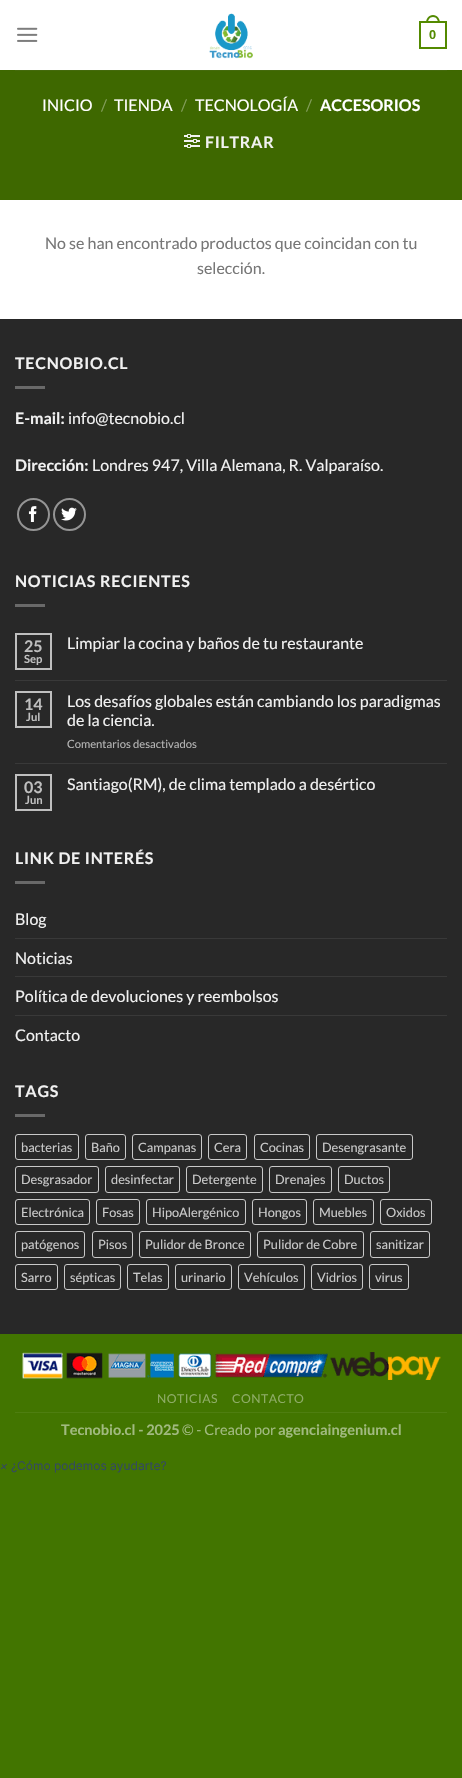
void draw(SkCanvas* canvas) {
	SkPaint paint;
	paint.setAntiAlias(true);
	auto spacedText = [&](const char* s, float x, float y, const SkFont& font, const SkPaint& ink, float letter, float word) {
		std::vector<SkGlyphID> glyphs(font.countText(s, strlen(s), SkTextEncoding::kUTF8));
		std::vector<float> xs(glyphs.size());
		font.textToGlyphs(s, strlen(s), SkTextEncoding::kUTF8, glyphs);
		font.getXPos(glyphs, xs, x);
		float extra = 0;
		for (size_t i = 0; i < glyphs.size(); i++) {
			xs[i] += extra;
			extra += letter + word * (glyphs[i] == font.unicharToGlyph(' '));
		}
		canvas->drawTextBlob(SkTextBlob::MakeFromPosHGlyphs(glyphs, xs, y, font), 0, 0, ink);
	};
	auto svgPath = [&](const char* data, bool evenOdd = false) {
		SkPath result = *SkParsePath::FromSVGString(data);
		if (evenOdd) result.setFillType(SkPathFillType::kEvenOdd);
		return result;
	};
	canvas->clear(0xff427500);
	paint.setColor(0xffffffff);
	canvas->drawRect(SkRect::MakeXYWH(0, 0, 462, 319), paint);
	canvas->drawImageRect(SkImages::DeferredFromEncodedData(SkData::MakeFromFileName("img1.png")), SkRect::MakeXYWH(17, 27, 21, 15), SkSamplingOptions());
	canvas->drawImageRect(SkImages::DeferredFromEncodedData(SkData::MakeFromFileName("img2.png")), SkRect::MakeXYWH(209, 13, 44, 46), SkSamplingOptions());
	paint.setStroke(true);
	paint.setStrokeWidth(2);
	paint.setColor(0xff538a00);
	canvas->drawRect(SkRect::MakeXYWH(420, 22, 26, 26), paint);
	paint.setStroke(false);
	canvas->drawPath(svgPath("M433 15C437.5 15 440 19 440 23H426C426 19 428.5 15 433 15ZM433 17C436.5 17 438 20 438 23H428C428 20 429.5 17 433 17Z", true), paint);
	SkFont f1(fontMgr->matchFamilyStyle("Liberation Sans", SkFontStyle::Bold()), 12.75);
	f1.setSubpixel(true);
	canvas->drawString("0", 429, 39, f1, paint);
	paint.setColor(0xff3e6800);
	canvas->drawRect(SkRect::MakeXYWH(0, 70, 462, 130), paint);
	paint.setColor(0xff446a0c);
	canvas->drawRect(SkRect::MakeXYWH(15, 70, 432, 1), paint);
	SkFont f2(fontMgr->matchFamilyStyle("Lato", SkFontStyle::Normal()), 16);
	f2.setSubpixel(true);
	paint.setColor(0xffffffff);
	canvas->drawString("INICIO", 42, 111, f2, paint);
	paint.setColor(0xff829d59);
	canvas->drawString("/", 101, 111, f2, paint);
	paint.setColor(0xffffffff);
	canvas->drawString("TIENDA", 114, 111, f2, paint);
	paint.setColor(0xff829d59);
	canvas->drawString("/", 181, 111, f2, paint);
	paint.setColor(0xffffffff);
	canvas->drawString("TECNOLOGÍA", 195, 111, f2, paint);
	paint.setColor(0xff829d59);
	canvas->drawString("/", 306, 111, f2, paint);
	SkFont f3(fontMgr->matchFamilyStyle("Lato", SkFontStyle::Bold()), 16);
	f3.setSubpixel(true);
	paint.setColor(0xffffffff);
	canvas->drawString("ACCESORIOS", 320, 111, f3, paint);
	canvas->drawImageRect(SkImages::DeferredFromEncodedData(SkData::MakeFromFileName("img3.png")), SkRect::MakeXYWH(184, 134, 16, 14), SkSamplingOptions());
	paint.setColor(0xfff1f1f1);
	spacedText("FILTRAR", 205, 148, f3, paint, 0.75, 0);
	paint.setColor(0xff777777);
	canvas->drawString("No se han encontrado productos que coincidan con tu", 45, 249, f2, paint);
	canvas->drawString("selección.", 197, 274, f2, paint);
	paint.setColor(0xff282828);
	canvas->drawRect(SkRect::MakeXYWH(0, 320, 462, 1014), paint);
	paint.setColor(0xff262626);
	canvas->drawRect(SkRect::MakeXYWH(0, 319, 462, 1), paint);
	paint.setColor(0xfff1f1f1);
	spacedText("TECNOBIO.CL", 15, 369, f3, paint, 0.75, 0);
	paint.setColor(0xff696969);
	canvas->drawRect(SkRect::MakeXYWH(15, 386, 30, 3), paint);
	paint.setColor(0xfff1f1f1);
	canvas->drawString("E-mail:", 15, 424, f3, paint);
	canvas->drawString("info@tecnobio.cl", 68, 424, f2, paint);
	canvas->drawString("Dirección:", 15, 471, f3, paint);
	canvas->drawString("Londres 947, Villa Alemana, R. Valparaíso.", 92, 471, f2, paint);
	paint.setStroke(true);
	paint.setColor(0xff949494);
	canvas->drawCircle(33.5, 514.5, 15.5, paint);
	canvas->drawImageRect(SkImages::DeferredFromEncodedData(SkData::MakeFromFileName("img4.png")), SkRect::MakeXYWH(28, 506, 9, 16), SkSamplingOptions());
	canvas->drawCircle(69.5, 514.5, 15.5, paint);
	canvas->drawImageRect(SkImages::DeferredFromEncodedData(SkData::MakeFromFileName("img5.png")), SkRect::MakeXYWH(61, 507, 16, 14), SkSamplingOptions());
	paint.setStroke(false);
	paint.setColor(0xfff1f1f1);
	spacedText("NOTICIAS RECIENTES", 15, 587, f3, paint, 0.75, 0);
	paint.setColor(0xff696969);
	canvas->drawRect(SkRect::MakeXYWH(15, 604, 30, 3), paint);
	paint.setStroke(true);
	paint.setColor(0xffbfbfbf);
	canvas->drawRect(SkRect::MakeXYWH(16, 634, 35, 35), paint);
	paint.setStroke(false);
	canvas->drawString("25", 24, 652, f3, paint);
	SkFont f4(fontMgr->matchFamilyStyle("Lato", SkFontStyle::Bold()), 11.25);
	f4.setSubpixel(true);
	canvas->drawString("Sep", 24, 663, f4, paint);
	paint.setColor(0xfff1f1f1);
	canvas->drawString("Limpiar la cocina y baños de tu restaurante", 67, 649, f2, paint);
	paint.setColor(0xff393939);
	canvas->drawRect(SkRect::MakeXYWH(15, 680, 432, 1), paint);
	paint.setStroke(true);
	paint.setColor(0xffbfbfbf);
	canvas->drawRect(SkRect::MakeXYWH(16, 692, 35, 35), paint);
	paint.setStroke(false);
	canvas->drawString("14", 24, 710, f3, paint);
	canvas->drawString("Jul", 26, 721, f4, paint);
	paint.setColor(0xfff1f1f1);
	canvas->drawString("Los desafíos globales están cambiando los paradigmas", 67, 707, f2, paint);
	canvas->drawString("de la ciencia.", 67, 726, f2, paint);
	SkFont f5(fontMgr->matchFamilyStyle("Lato", SkFontStyle::Normal()), 11.25);
	f5.setSubpixel(true);
	paint.setColor(0xffb5b5b5);
	canvas->drawString("Comentarios desactivados", 67, 748, f5, paint);
	paint.setColor(0xff393939);
	canvas->drawRect(SkRect::MakeXYWH(15, 763, 432, 1), paint);
	paint.setStroke(true);
	paint.setColor(0xffbfbfbf);
	canvas->drawRect(SkRect::MakeXYWH(16, 775, 35, 35), paint);
	paint.setStroke(false);
	canvas->drawString("03", 24, 793, f3, paint);
	canvas->drawString("Jun", 25, 804, f4, paint);
	paint.setColor(0xfff1f1f1);
	canvas->drawString("Santiago(RM), de clima templado a desértico", 67, 790, f2, paint);
	spacedText("LINK DE INTERÉS", 15, 864, f3, paint, 0.75, 0);
	paint.setColor(0xff696969);
	canvas->drawRect(SkRect::MakeXYWH(15, 881, 30, 3), paint);
	paint.setColor(0xfff1f1f1);
	canvas->drawString("Blog", 15, 925, f2, paint);
	paint.setColor(0xff393939);
	canvas->drawRect(SkRect::MakeXYWH(15, 938, 432, 1), paint);
	paint.setColor(0xfff1f1f1);
	canvas->drawString("Noticias", 15, 964, f2, paint);
	paint.setColor(0xff393939);
	canvas->drawRect(SkRect::MakeXYWH(15, 976, 432, 1), paint);
	paint.setColor(0xfff1f1f1);
	canvas->drawString("Política de devoluciones y reembolsos", 15, 1002, f2, paint);
	paint.setColor(0xff393939);
	canvas->drawRect(SkRect::MakeXYWH(15, 1015, 432, 1), paint);
	paint.setColor(0xfff1f1f1);
	canvas->drawString("Contacto", 15, 1041, f2, paint);
	spacedText("TAGS", 15, 1097, f3, paint, 0.75, 0);
	paint.setColor(0xff696969);
	canvas->drawRect(SkRect::MakeXYWH(15, 1114, 30, 3), paint);
	paint.setStroke(true);
	paint.setStrokeWidth(1);
	paint.setColor(0xffc9c9c9);
	canvas->drawRoundRect(SkRect::MakeXYWH(15.5, 1134.5, 63, 25), 2.5, 2.5, paint);
	SkFont f6(fontMgr->matchFamilyStyle("Lato", SkFontStyle::Normal()), 12.75);
	f6.setSubpixel(true);
	paint.setStroke(false);
	canvas->drawString("bacterias", 21, 1152, f6, paint);
	paint.setStroke(true);
	canvas->drawRoundRect(SkRect::MakeXYWH(85.5, 1134.5, 40, 25), 2.5, 2.5, paint);
	paint.setStroke(false);
	canvas->drawString("Baño", 91, 1152, f6, paint);
	paint.setStroke(true);
	canvas->drawRoundRect(SkRect::MakeXYWH(132.5, 1134.5, 69, 25), 2.5, 2.5, paint);
	paint.setStroke(false);
	canvas->drawString("Campanas", 138, 1152, f6, paint);
	paint.setStroke(true);
	canvas->drawRoundRect(SkRect::MakeXYWH(208.5, 1134.5, 38, 25), 2.5, 2.5, paint);
	paint.setStroke(false);
	canvas->drawString("Cera", 214, 1152, f6, paint);
	paint.setStroke(true);
	canvas->drawRoundRect(SkRect::MakeXYWH(254.5, 1134.5, 55, 25), 2.5, 2.5, paint);
	paint.setStroke(false);
	canvas->drawString("Cocinas", 260, 1152, f6, paint);
	paint.setStroke(true);
	canvas->drawRoundRect(SkRect::MakeXYWH(316.5, 1134.5, 96, 25), 2.5, 2.5, paint);
	paint.setStroke(false);
	canvas->drawString("Desengrasante", 322, 1152, f6, paint);
	paint.setStroke(true);
	canvas->drawRoundRect(SkRect::MakeXYWH(15.5, 1166.5, 83, 26), 2.5, 2.5, paint);
	paint.setStroke(false);
	canvas->drawString("Desgrasador", 21, 1184, f6, paint);
	paint.setStroke(true);
	canvas->drawRoundRect(SkRect::MakeXYWH(105.5, 1166.5, 74, 26), 2.5, 2.5, paint);
	paint.setStroke(false);
	canvas->drawString("desinfectar", 111, 1184, f6, paint);
	paint.setStroke(true);
	canvas->drawRoundRect(SkRect::MakeXYWH(186.5, 1166.5, 76, 26), 2.5, 2.5, paint);
	paint.setStroke(false);
	canvas->drawString("Detergente", 192, 1184, f6, paint);
	paint.setStroke(true);
	canvas->drawRoundRect(SkRect::MakeXYWH(269.5, 1166.5, 62, 26), 2.5, 2.5, paint);
	paint.setStroke(false);
	canvas->drawString("Drenajes", 275, 1184, f6, paint);
	paint.setStroke(true);
	canvas->drawRoundRect(SkRect::MakeXYWH(338.5, 1166.5, 51, 26), 2.5, 2.5, paint);
	paint.setStroke(false);
	canvas->drawString("Ductos", 344, 1184, f6, paint);
	paint.setStroke(true);
	canvas->drawRoundRect(SkRect::MakeXYWH(15.5, 1199.5, 74, 25), 2.5, 2.5, paint);
	paint.setStroke(false);
	canvas->drawString("Electrónica", 21, 1217, f6, paint);
	paint.setStroke(true);
	canvas->drawRoundRect(SkRect::MakeXYWH(96.5, 1199.5, 43, 25), 2.5, 2.5, paint);
	paint.setStroke(false);
	canvas->drawString("Fosas", 102, 1217, f6, paint);
	paint.setStroke(true);
	canvas->drawRoundRect(SkRect::MakeXYWH(146.5, 1199.5, 99, 25), 2.5, 2.5, paint);
	paint.setStroke(false);
	canvas->drawString("HipoAlergénico", 152, 1217, f6, paint);
	paint.setStroke(true);
	canvas->drawRoundRect(SkRect::MakeXYWH(252.5, 1199.5, 54, 25), 2.5, 2.5, paint);
	paint.setStroke(false);
	canvas->drawString("Hongos", 258, 1217, f6, paint);
	paint.setStroke(true);
	canvas->drawRoundRect(SkRect::MakeXYWH(313.5, 1199.5, 60, 25), 2.5, 2.5, paint);
	paint.setStroke(false);
	canvas->drawString("Muebles", 319, 1217, f6, paint);
	paint.setStroke(true);
	canvas->drawRoundRect(SkRect::MakeXYWH(380.5, 1199.5, 51, 25), 2.5, 2.5, paint);
	paint.setStroke(false);
	canvas->drawString("Oxidos", 386, 1217, f6, paint);
	paint.setStroke(true);
	canvas->drawRoundRect(SkRect::MakeXYWH(15.5, 1231.5, 69, 26), 2.5, 2.5, paint);
	paint.setStroke(false);
	canvas->drawString("patógenos", 21, 1249, f6, paint);
	paint.setStroke(true);
	canvas->drawRoundRect(SkRect::MakeXYWH(92.5, 1231.5, 40, 26), 2.5, 2.5, paint);
	paint.setStroke(false);
	canvas->drawString("Pisos", 98, 1249, f6, paint);
	paint.setStroke(true);
	canvas->drawRoundRect(SkRect::MakeXYWH(139.5, 1231.5, 111, 26), 2.5, 2.5, paint);
	paint.setStroke(false);
	canvas->drawString("Pulidor de Bronce", 145, 1249, f6, paint);
	paint.setStroke(true);
	canvas->drawRoundRect(SkRect::MakeXYWH(257.5, 1231.5, 106, 26), 2.5, 2.5, paint);
	paint.setStroke(false);
	canvas->drawString("Pulidor de Cobre", 263, 1249, f6, paint);
	paint.setStroke(true);
	canvas->drawRoundRect(SkRect::MakeXYWH(370.5, 1231.5, 59, 26), 2.5, 2.5, paint);
	paint.setStroke(false);
	canvas->drawString("sanitizar", 376, 1249, f6, paint);
	paint.setStroke(true);
	canvas->drawRoundRect(SkRect::MakeXYWH(15.5, 1264.5, 42, 25), 2.5, 2.5, paint);
	paint.setStroke(false);
	canvas->drawString("Sarro", 21, 1282, f6, paint);
	paint.setStroke(true);
	canvas->drawRoundRect(SkRect::MakeXYWH(64.5, 1264.5, 56, 25), 2.5, 2.5, paint);
	paint.setStroke(false);
	canvas->drawString("sépticas", 70, 1282, f6, paint);
	paint.setStroke(true);
	canvas->drawRoundRect(SkRect::MakeXYWH(127.5, 1264.5, 41, 25), 2.5, 2.5, paint);
	paint.setStroke(false);
	canvas->drawString("Telas", 133, 1282, f6, paint);
	paint.setStroke(true);
	canvas->drawRoundRect(SkRect::MakeXYWH(175.5, 1264.5, 56, 25), 2.5, 2.5, paint);
	paint.setStroke(false);
	canvas->drawString("urinario", 181, 1282, f6, paint);
	paint.setStroke(true);
	canvas->drawRoundRect(SkRect::MakeXYWH(238.5, 1264.5, 66, 25), 2.5, 2.5, paint);
	paint.setStroke(false);
	canvas->drawString("Vehículos", 244, 1282, f6, paint);
	paint.setStroke(true);
	canvas->drawRoundRect(SkRect::MakeXYWH(311.5, 1264.5, 51, 25), 2.5, 2.5, paint);
	paint.setStroke(false);
	canvas->drawString("Vidrios", 317, 1282, f6, paint);
	paint.setStroke(true);
	canvas->drawRoundRect(SkRect::MakeXYWH(369.5, 1264.5, 39, 25), 2.5, 2.5, paint);
	paint.setStroke(false);
	canvas->drawString("virus", 375, 1282, f6, paint);
	canvas->drawImageRect(SkImages::DeferredFromEncodedData(SkData::MakeFromFileName("img6.png")), SkRect::MakeXYWH(22, 1352, 419, 28), SkSamplingOptions());
	paint.setColor(0xff4e7e10);
	canvas->drawRect(SkRect::MakeXYWH(15, 1412, 432, 1), paint);
	SkFont f7(fontMgr->matchFamilyStyle("Lato", SkFontStyle::Normal()), 12.25);
	f7.setSubpixel(true);
	paint.setColor(0xff8eac66);
	spacedText("NOTICIAS", 157, 1403, f7, paint, 0.5, 0);
	spacedText("CONTACTO", 232, 1403, f7, paint, 0.5, 0);
	SkFont f8(fontMgr->matchFamilyStyle("Lato", SkFontStyle::Bold()), 14.5);
	f8.setSubpixel(true);
	paint.setColor(0xffa1ba80);
	canvas->drawString("Tecnobio.cl - 2025", 61, 1435, f8, paint);
	SkFont f9(fontMgr->matchFamilyStyle("Lato", SkFontStyle::Normal()), 14.5);
	f9.setSubpixel(true);
	canvas->drawString("© - Creado por", 182, 1435, f9, paint);
	canvas->drawString("agenciaingenium.cl", 278, 1435, f8, paint);
	SkFont f10(fontMgr->matchFamilyStyle("Inter", SkFontStyle::Italic()), 12);
	f10.setSubpixel(true);
	paint.setColor(0xff334862);
	canvas->drawString("×", 0, 1470, f10, paint);
	SkFont f11(fontMgr->matchFamilyStyle("Inter", SkFontStyle::Normal()), 12);
	f11.setSubpixel(true);
	canvas->drawString("¿Cómo podemos ayudarte?", 11, 1470, f11, paint);
}
